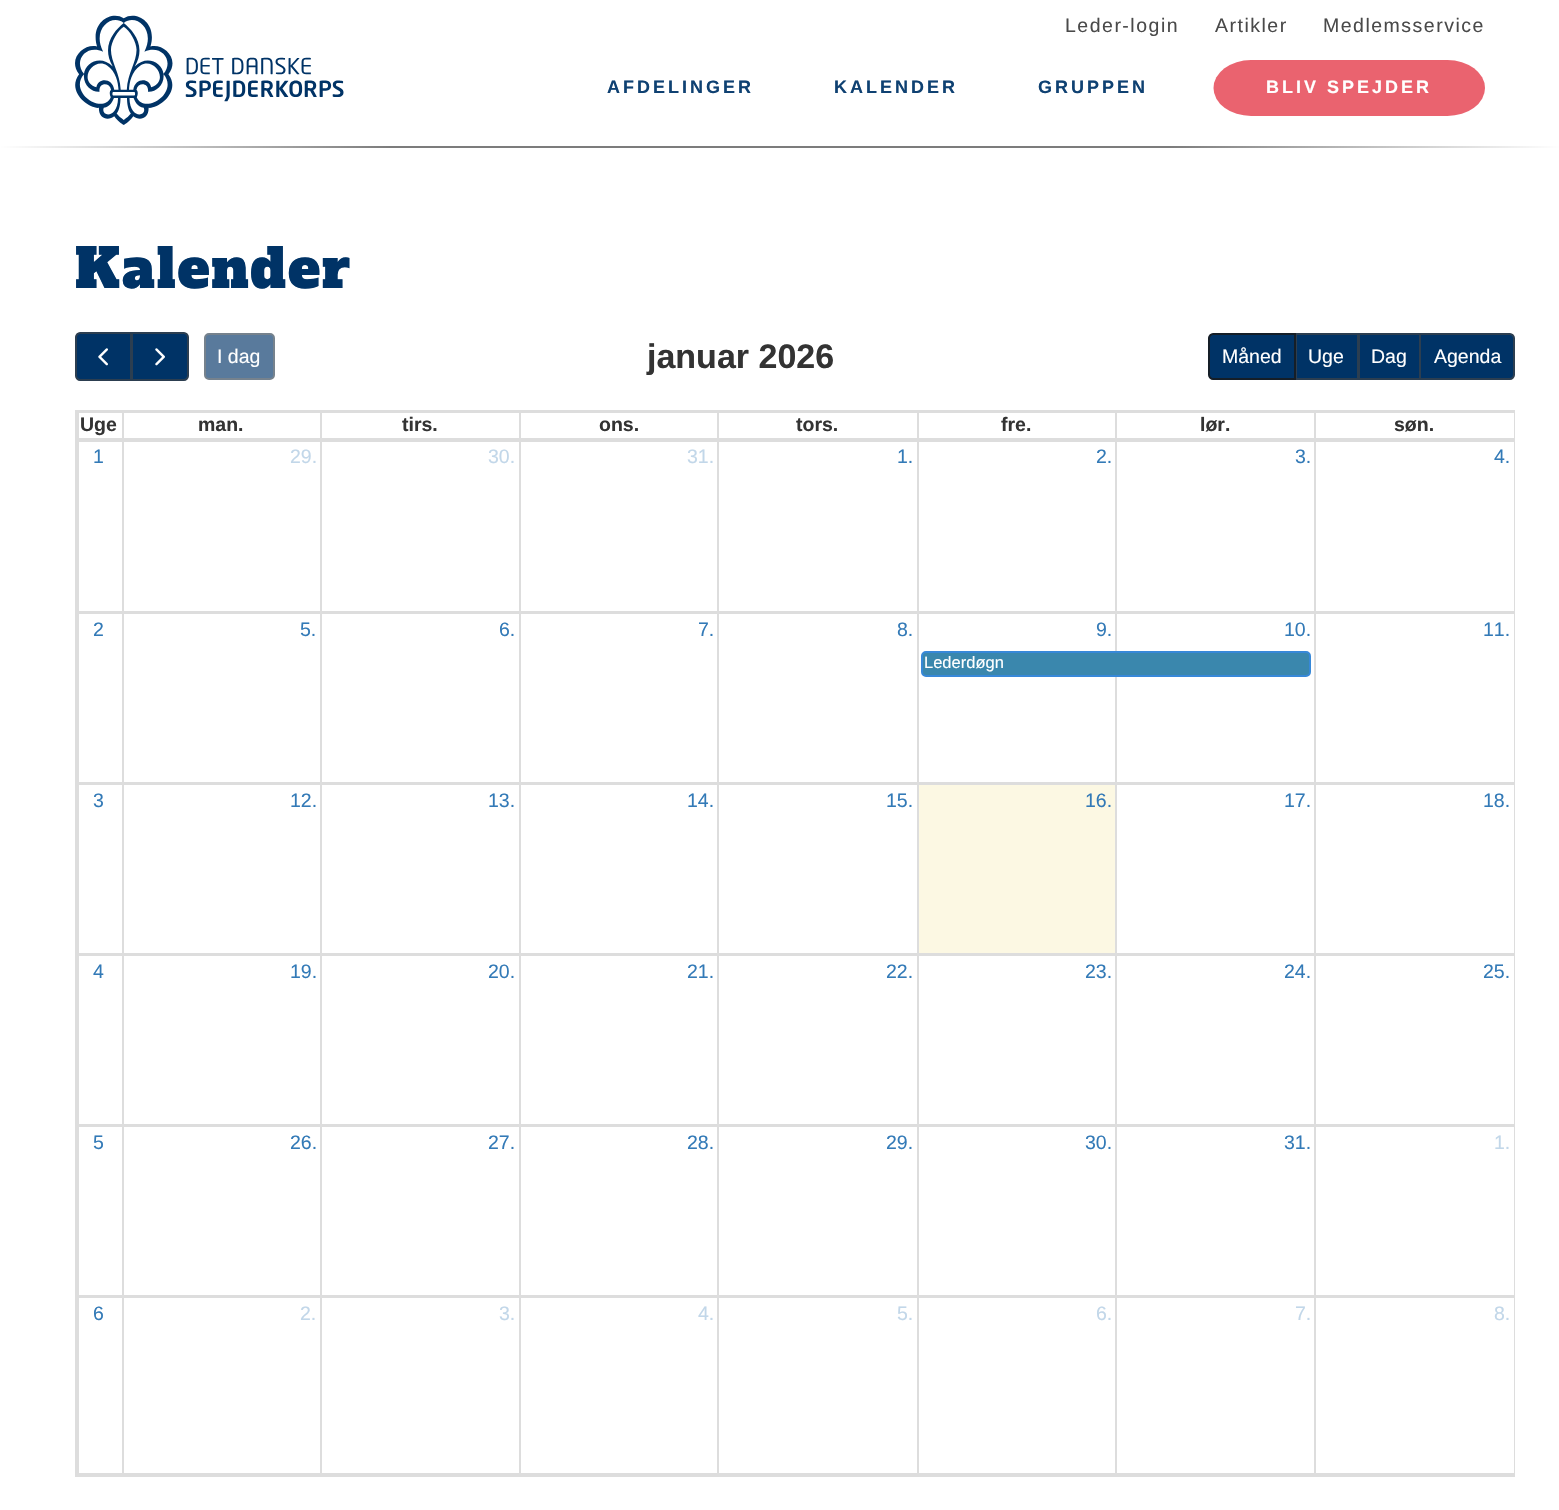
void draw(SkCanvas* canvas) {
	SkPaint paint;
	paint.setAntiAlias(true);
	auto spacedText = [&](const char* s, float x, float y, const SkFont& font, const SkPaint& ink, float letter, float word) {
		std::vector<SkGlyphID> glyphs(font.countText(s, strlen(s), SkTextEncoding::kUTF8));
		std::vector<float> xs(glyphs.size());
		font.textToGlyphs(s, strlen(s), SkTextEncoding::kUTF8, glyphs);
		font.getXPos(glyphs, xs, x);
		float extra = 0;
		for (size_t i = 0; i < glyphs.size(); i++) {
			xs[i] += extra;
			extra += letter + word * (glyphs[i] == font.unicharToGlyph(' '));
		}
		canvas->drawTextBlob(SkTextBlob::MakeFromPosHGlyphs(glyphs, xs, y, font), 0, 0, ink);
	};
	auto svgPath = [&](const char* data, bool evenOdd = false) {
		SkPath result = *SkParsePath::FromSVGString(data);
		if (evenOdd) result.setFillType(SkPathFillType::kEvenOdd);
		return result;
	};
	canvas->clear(0xffffffff);
	canvas->drawImageRect(SkImages::DeferredFromEncodedData(SkData::MakeFromFileName("img1.png")), SkRect::MakeXYWH(75, 15, 269, 110), SkSamplingOptions());
	SkFont f1(fontMgr->matchFamilyStyle("Liberation Sans", SkFontStyle::Normal()), 19.5);
	f1.setSubpixel(true);
	paint.setColor(0xff4a4a4a);
	spacedText("Leder-login", 1065, 32, f1, paint, 1.5, 0);
	spacedText("Artikler", 1215, 32, f1, paint, 1.5, 0);
	spacedText("Medlemsservice", 1323, 32, f1, paint, 1.5, 0);
	SkFont f2(fontMgr->matchFamilyStyle("Liberation Sans", SkFontStyle::Bold()), 18);
	f2.setSubpixel(true);
	paint.setColor(0xff0f4172);
	spacedText("AFDELINGER", 607, 93, f2, paint, 3, 0);
	spacedText("KALENDER", 834, 93, f2, paint, 3, 0);
	spacedText("GRUPPEN", 1038, 93, f2, paint, 3, 0);
	paint.setColor(0xffea636f);
	canvas->drawRect(SkRect::MakeXYWH(1251, 60, 196, 56), paint);
	canvas->drawOval(SkRect::MakeXYWH(1213.5, 60, 75, 56), paint);
	canvas->drawOval(SkRect::MakeXYWH(1410, 60, 75, 56), paint);
	paint.setColor(0xffffffff);
	spacedText("BLIV SPEJDER", 1266, 93, f2, paint, 3, 0);
	{
		const SkColor colors[] = {0xffffffff, 0xff7c7c7c, 0xff7c7c7c, 0xffffffff};
		const float stops[] = {0, 0.25, 0.75, 1};
		const SkPoint ends[] = {{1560, 146}, {0, 146}};
		paint.setShader(SkGradientShader::MakeLinear(ends, colors, stops, 4, SkTileMode::kClamp));
		paint.setAlpha(255);
	}
	canvas->drawRect(SkRect::MakeXYWH(0, 146, 1559, 2), paint);
	SkFont f3(fontMgr->matchFamilyStyle("Alfa Slab One", SkFontStyle::Normal()), 54);
	f3.setSubpixel(true);
	paint.setShader(nullptr);
	paint.setColor(0xff003366);
	spacedText("Kalender", 75, 288, f3, paint, 1.75, 0);
	canvas->drawPath(svgPath("M80 333H131V380H80C78 380 76 378 76 376V337C76 335 78 333 80 333Z"), paint);
	paint.setStroke(true);
	paint.setStrokeWidth(2);
	paint.setColor(0xff2c3e50);
	canvas->drawPath(svgPath("M80 333H131V380H80C78 380 76 378 76 376V337C76 335 78 333 80 333Z"), paint);
	canvas->drawImageRect(SkImages::DeferredFromEncodedData(SkData::MakeFromFileName("img2.png")), SkRect::MakeXYWH(98, 348, 10, 18), SkSamplingOptions());
	paint.setStroke(false);
	paint.setColor(0xff003366);
	canvas->drawPath(svgPath("M132 333H184C186 333 188 335 188 337V376C188 378 186 380 184 380H132Z"), paint);
	paint.setStroke(true);
	paint.setColor(0xff2c3e50);
	canvas->drawPath(svgPath("M132 333H184C186 333 188 335 188 337V376C188 378 186 380 184 380H132Z"), paint);
	canvas->drawImageRect(SkImages::DeferredFromEncodedData(SkData::MakeFromFileName("img3.png")), SkRect::MakeXYWH(155, 348, 10, 18), SkSamplingOptions());
	paint.setStroke(false);
	paint.setColor(0xff597a9c);
	canvas->drawRoundRect(SkRect::MakeXYWH(205, 334, 69, 45), 4, 4, paint);
	paint.setStroke(true);
	paint.setColor(0xff76828d);
	canvas->drawRoundRect(SkRect::MakeXYWH(205, 334, 69, 45), 4, 4, paint);
	paint.setStroke(false);
	paint.setColor(0xffffffff);
	canvas->drawString("I dag", 217, 363, f1, paint);
	SkFont f4(fontMgr->matchFamilyStyle("Liberation Sans", SkFontStyle::Bold()), 34);
	f4.setSubpixel(true);
	paint.setColor(0xff333333);
	canvas->drawString("januar 2026", 647, 368, f4, paint);
	paint.setColor(0xff003366);
	canvas->drawRect(SkRect::MakeXYWH(1296, 334, 62, 45), paint);
	paint.setStroke(true);
	paint.setColor(0xff2c3e50);
	canvas->drawRect(SkRect::MakeXYWH(1296, 334, 62, 45), paint);
	paint.setStroke(false);
	paint.setColor(0xff003366);
	canvas->drawPath(svgPath("M1213 334H1295V379H1213C1211 379 1209 377 1209 375V338C1209 336 1211 334 1213 334Z"), paint);
	paint.setStroke(true);
	paint.setColor(0xff151e27);
	canvas->drawPath(svgPath("M1213 334H1295V379H1213C1211 379 1209 377 1209 375V338C1209 336 1211 334 1213 334Z"), paint);
	paint.setStroke(false);
	paint.setColor(0xffffffff);
	canvas->drawString("Måned", 1222, 363, f1, paint);
	canvas->drawString("Uge", 1308, 363, f1, paint);
	paint.setColor(0xff003366);
	canvas->drawRect(SkRect::MakeXYWH(1359, 334, 61, 45), paint);
	paint.setStroke(true);
	paint.setColor(0xff2c3e50);
	canvas->drawRect(SkRect::MakeXYWH(1359, 334, 61, 45), paint);
	paint.setStroke(false);
	paint.setColor(0xffffffff);
	canvas->drawString("Dag", 1371, 363, f1, paint);
	paint.setColor(0xff003366);
	canvas->drawPath(svgPath("M1420 334H1510C1512 334 1514 336 1514 338V375C1514 377 1512 379 1510 379H1420Z"), paint);
	paint.setStroke(true);
	paint.setColor(0xff2c3e50);
	canvas->drawPath(svgPath("M1420 334H1510C1512 334 1514 336 1514 338V375C1514 377 1512 379 1510 379H1420Z"), paint);
	paint.setStroke(false);
	paint.setColor(0xffffffff);
	canvas->drawString("Agenda", 1434, 363, f1, paint);
	paint.setColor(0xffdddddd);
	canvas->drawRect(SkRect::MakeXYWH(75, 410, 1440, 1), paint);
	canvas->drawRect(SkRect::MakeXYWH(75, 440, 1440, 2), paint);
	canvas->drawRect(SkRect::MakeXYWH(1514, 440, 1, 1036), paint);
	canvas->drawRect(SkRect::MakeXYWH(1514, 410, 1, 31), paint);
	canvas->drawRect(SkRect::MakeXYWH(75, 1475, 1440, 2), paint);
	canvas->drawRect(SkRect::MakeXYWH(75, 440, 2, 1036), paint);
	canvas->drawRect(SkRect::MakeXYWH(75, 410, 2, 31), paint);
	canvas->drawRect(SkRect::MakeXYWH(1314, 411, 201, 2), paint);
	canvas->drawRect(SkRect::MakeXYWH(1314, 438, 201, 2), paint);
	canvas->drawRect(SkRect::MakeXYWH(1314, 411, 2, 29), paint);
	canvas->drawRect(SkRect::MakeXYWH(1115, 411, 201, 2), paint);
	canvas->drawRect(SkRect::MakeXYWH(1115, 438, 201, 2), paint);
	canvas->drawRect(SkRect::MakeXYWH(1115, 411, 2, 29), paint);
	canvas->drawRect(SkRect::MakeXYWH(917, 411, 199, 2), paint);
	canvas->drawRect(SkRect::MakeXYWH(917, 438, 199, 2), paint);
	canvas->drawRect(SkRect::MakeXYWH(917, 411, 2, 29), paint);
	canvas->drawRect(SkRect::MakeXYWH(717, 411, 201, 2), paint);
	canvas->drawRect(SkRect::MakeXYWH(717, 438, 201, 2), paint);
	canvas->drawRect(SkRect::MakeXYWH(717, 411, 2, 29), paint);
	canvas->drawRect(SkRect::MakeXYWH(519, 411, 200, 2), paint);
	canvas->drawRect(SkRect::MakeXYWH(519, 438, 200, 2), paint);
	canvas->drawRect(SkRect::MakeXYWH(519, 411, 2, 29), paint);
	canvas->drawRect(SkRect::MakeXYWH(320, 411, 201, 2), paint);
	canvas->drawRect(SkRect::MakeXYWH(320, 438, 201, 2), paint);
	canvas->drawRect(SkRect::MakeXYWH(320, 411, 2, 29), paint);
	canvas->drawRect(SkRect::MakeXYWH(122, 411, 199, 2), paint);
	canvas->drawRect(SkRect::MakeXYWH(122, 438, 199, 2), paint);
	canvas->drawRect(SkRect::MakeXYWH(122, 411, 2, 29), paint);
	canvas->drawRect(SkRect::MakeXYWH(77, 411, 46, 2), paint);
	canvas->drawRect(SkRect::MakeXYWH(77, 438, 46, 2), paint);
	canvas->drawRect(SkRect::MakeXYWH(77, 411, 2, 29), paint);
	SkFont f5(fontMgr->matchFamilyStyle("Liberation Sans", SkFontStyle::Bold()), 19.5);
	f5.setSubpixel(true);
	paint.setColor(0xff333333);
	canvas->drawString("Uge", 80, 431, f5, paint);
	canvas->drawString("man.", 198, 431, f5, paint);
	canvas->drawString("tirs.", 402, 431, f5, paint);
	canvas->drawString("ons.", 599, 431, f5, paint);
	canvas->drawString("tors.", 796, 431, f5, paint);
	canvas->drawString("fre.", 1001, 431, f5, paint);
	canvas->drawString("lør.", 1200, 431, f5, paint);
	canvas->drawString("søn.", 1394, 431, f5, paint);
	paint.setColor(0xffdddddd);
	canvas->drawRect(SkRect::MakeXYWH(1314, 611, 200, 3), paint);
	canvas->drawRect(SkRect::MakeXYWH(1314, 441, 2, 171), paint);
	canvas->drawRect(SkRect::MakeXYWH(1115, 611, 201, 1), paint);
	canvas->drawRect(SkRect::MakeXYWH(1115, 441, 2, 171), paint);
	canvas->drawRect(SkRect::MakeXYWH(917, 611, 199, 1), paint);
	canvas->drawRect(SkRect::MakeXYWH(917, 441, 2, 171), paint);
	canvas->drawRect(SkRect::MakeXYWH(717, 611, 201, 1), paint);
	canvas->drawRect(SkRect::MakeXYWH(717, 441, 2, 171), paint);
	canvas->drawRect(SkRect::MakeXYWH(519, 611, 200, 1), paint);
	canvas->drawRect(SkRect::MakeXYWH(519, 441, 2, 171), paint);
	canvas->drawRect(SkRect::MakeXYWH(320, 611, 201, 1), paint);
	canvas->drawRect(SkRect::MakeXYWH(320, 441, 2, 171), paint);
	canvas->drawRect(SkRect::MakeXYWH(122, 611, 199, 1), paint);
	canvas->drawRect(SkRect::MakeXYWH(122, 441, 2, 171), paint);
	canvas->drawRect(SkRect::MakeXYWH(77, 611, 46, 1), paint);
	canvas->drawRect(SkRect::MakeXYWH(77, 441, 2, 171), paint);
	paint.setColor(0xff337ab7);
	canvas->drawString("1", 93, 463, f1, paint);
	paint.setColor(0xffc2d7e9);
	canvas->drawString("29.", 290, 463, f1, paint);
	canvas->drawString("30.", 488, 463, f1, paint);
	canvas->drawString("31.", 687, 463, f1, paint);
	paint.setColor(0xff337ab7);
	canvas->drawString("1.", 897, 463, f1, paint);
	canvas->drawString("2.", 1096, 463, f1, paint);
	canvas->drawString("3.", 1295, 463, f1, paint);
	canvas->drawString("4.", 1494, 463, f1, paint);
	paint.setColor(0xffdddddd);
	canvas->drawRect(SkRect::MakeXYWH(1314, 782, 200, 3), paint);
	canvas->drawRect(SkRect::MakeXYWH(1314, 612, 2, 171), paint);
	canvas->drawRect(SkRect::MakeXYWH(1115, 612, 201, 2), paint);
	canvas->drawRect(SkRect::MakeXYWH(1115, 782, 201, 1), paint);
	canvas->drawRect(SkRect::MakeXYWH(1115, 612, 2, 171), paint);
	canvas->drawRect(SkRect::MakeXYWH(917, 612, 199, 2), paint);
	canvas->drawRect(SkRect::MakeXYWH(917, 782, 199, 1), paint);
	canvas->drawRect(SkRect::MakeXYWH(917, 612, 2, 171), paint);
	canvas->drawRect(SkRect::MakeXYWH(717, 612, 201, 2), paint);
	canvas->drawRect(SkRect::MakeXYWH(717, 782, 201, 1), paint);
	canvas->drawRect(SkRect::MakeXYWH(717, 612, 2, 171), paint);
	canvas->drawRect(SkRect::MakeXYWH(519, 612, 200, 2), paint);
	canvas->drawRect(SkRect::MakeXYWH(519, 782, 200, 1), paint);
	canvas->drawRect(SkRect::MakeXYWH(519, 612, 2, 171), paint);
	canvas->drawRect(SkRect::MakeXYWH(320, 612, 201, 2), paint);
	canvas->drawRect(SkRect::MakeXYWH(320, 782, 201, 1), paint);
	canvas->drawRect(SkRect::MakeXYWH(320, 612, 2, 171), paint);
	canvas->drawRect(SkRect::MakeXYWH(122, 612, 199, 2), paint);
	canvas->drawRect(SkRect::MakeXYWH(122, 782, 199, 1), paint);
	canvas->drawRect(SkRect::MakeXYWH(122, 612, 2, 171), paint);
	canvas->drawRect(SkRect::MakeXYWH(77, 612, 46, 2), paint);
	canvas->drawRect(SkRect::MakeXYWH(77, 782, 46, 1), paint);
	canvas->drawRect(SkRect::MakeXYWH(77, 612, 2, 171), paint);
	paint.setColor(0xff337ab7);
	canvas->drawString("2", 93, 636, f1, paint);
	canvas->drawString("5.", 300, 636, f1, paint);
	canvas->drawString("6.", 499, 636, f1, paint);
	canvas->drawString("7.", 698, 636, f1, paint);
	canvas->drawString("8.", 897, 636, f1, paint);
	canvas->drawString("9.", 1096, 636, f1, paint);
	canvas->drawString("10.", 1284, 636, f1, paint);
	canvas->drawString("11.", 1483, 636, f1, paint);
	paint.setColor(0xff3a87ad);
	canvas->drawRoundRect(SkRect::MakeXYWH(922, 652, 388, 24), 4, 4, paint);
	paint.setStroke(true);
	paint.setColor(0xff3788d8);
	canvas->drawRoundRect(SkRect::MakeXYWH(922, 652, 388, 24), 4, 4, paint);
	SkFont f6(fontMgr->matchFamilyStyle("Liberation Sans", SkFontStyle::Normal()), 16.5);
	f6.setSubpixel(true);
	paint.setStroke(false);
	paint.setColor(0xffffffff);
	canvas->drawString("Lederdøgn", 924, 668, f6, paint);
	paint.setColor(0xffdddddd);
	canvas->drawRect(SkRect::MakeXYWH(1314, 953, 200, 3), paint);
	canvas->drawRect(SkRect::MakeXYWH(1314, 783, 2, 171), paint);
	canvas->drawRect(SkRect::MakeXYWH(1115, 783, 201, 2), paint);
	canvas->drawRect(SkRect::MakeXYWH(1115, 953, 201, 1), paint);
	canvas->drawRect(SkRect::MakeXYWH(1115, 783, 2, 171), paint);
	canvas->drawRect(SkRect::MakeXYWH(917, 783, 199, 2), paint);
	canvas->drawRect(SkRect::MakeXYWH(917, 953, 199, 1), paint);
	canvas->drawRect(SkRect::MakeXYWH(917, 783, 2, 171), paint);
	canvas->drawRect(SkRect::MakeXYWH(717, 783, 201, 2), paint);
	canvas->drawRect(SkRect::MakeXYWH(717, 953, 201, 1), paint);
	canvas->drawRect(SkRect::MakeXYWH(717, 783, 2, 171), paint);
	canvas->drawRect(SkRect::MakeXYWH(519, 783, 200, 2), paint);
	canvas->drawRect(SkRect::MakeXYWH(519, 953, 200, 1), paint);
	canvas->drawRect(SkRect::MakeXYWH(519, 783, 2, 171), paint);
	canvas->drawRect(SkRect::MakeXYWH(320, 783, 201, 2), paint);
	canvas->drawRect(SkRect::MakeXYWH(320, 953, 201, 1), paint);
	canvas->drawRect(SkRect::MakeXYWH(320, 783, 2, 171), paint);
	canvas->drawRect(SkRect::MakeXYWH(122, 783, 199, 2), paint);
	canvas->drawRect(SkRect::MakeXYWH(122, 953, 199, 1), paint);
	canvas->drawRect(SkRect::MakeXYWH(122, 783, 2, 171), paint);
	canvas->drawRect(SkRect::MakeXYWH(77, 783, 46, 2), paint);
	canvas->drawRect(SkRect::MakeXYWH(77, 953, 46, 1), paint);
	canvas->drawRect(SkRect::MakeXYWH(77, 783, 2, 171), paint);
	paint.setColor(0xfffcf8e3);
	canvas->drawRect(SkRect::MakeXYWH(919, 785, 196, 168), paint);
	paint.setColor(0xff337ab7);
	canvas->drawString("3", 93, 807, f1, paint);
	canvas->drawString("12.", 290, 807, f1, paint);
	canvas->drawString("13.", 488, 807, f1, paint);
	canvas->drawString("14.", 687, 807, f1, paint);
	canvas->drawString("15.", 886, 807, f1, paint);
	canvas->drawString("16.", 1085, 807, f1, paint);
	canvas->drawString("17.", 1284, 807, f1, paint);
	canvas->drawString("18.", 1483, 807, f1, paint);
	paint.setColor(0xffdddddd);
	canvas->drawRect(SkRect::MakeXYWH(1314, 1124, 200, 3), paint);
	canvas->drawRect(SkRect::MakeXYWH(1314, 954, 2, 171), paint);
	canvas->drawRect(SkRect::MakeXYWH(1115, 954, 201, 2), paint);
	canvas->drawRect(SkRect::MakeXYWH(1115, 1124, 201, 1), paint);
	canvas->drawRect(SkRect::MakeXYWH(1115, 954, 2, 171), paint);
	canvas->drawRect(SkRect::MakeXYWH(917, 954, 199, 2), paint);
	canvas->drawRect(SkRect::MakeXYWH(917, 1124, 199, 1), paint);
	canvas->drawRect(SkRect::MakeXYWH(917, 954, 2, 171), paint);
	canvas->drawRect(SkRect::MakeXYWH(717, 954, 201, 2), paint);
	canvas->drawRect(SkRect::MakeXYWH(717, 1124, 201, 1), paint);
	canvas->drawRect(SkRect::MakeXYWH(717, 954, 2, 171), paint);
	canvas->drawRect(SkRect::MakeXYWH(519, 954, 200, 2), paint);
	canvas->drawRect(SkRect::MakeXYWH(519, 1124, 200, 1), paint);
	canvas->drawRect(SkRect::MakeXYWH(519, 954, 2, 171), paint);
	canvas->drawRect(SkRect::MakeXYWH(320, 954, 201, 2), paint);
	canvas->drawRect(SkRect::MakeXYWH(320, 1124, 201, 1), paint);
	canvas->drawRect(SkRect::MakeXYWH(320, 954, 2, 171), paint);
	canvas->drawRect(SkRect::MakeXYWH(122, 954, 199, 2), paint);
	canvas->drawRect(SkRect::MakeXYWH(122, 1124, 199, 1), paint);
	canvas->drawRect(SkRect::MakeXYWH(122, 954, 2, 171), paint);
	canvas->drawRect(SkRect::MakeXYWH(77, 954, 46, 2), paint);
	canvas->drawRect(SkRect::MakeXYWH(77, 1124, 46, 1), paint);
	canvas->drawRect(SkRect::MakeXYWH(77, 954, 2, 171), paint);
	paint.setColor(0xff337ab7);
	canvas->drawString("4", 93, 978, f1, paint);
	canvas->drawString("19.", 290, 978, f1, paint);
	canvas->drawString("20.", 488, 978, f1, paint);
	canvas->drawString("21.", 687, 978, f1, paint);
	canvas->drawString("22.", 886, 978, f1, paint);
	canvas->drawString("23.", 1085, 978, f1, paint);
	canvas->drawString("24.", 1284, 978, f1, paint);
	canvas->drawString("25.", 1483, 978, f1, paint);
	paint.setColor(0xffdddddd);
	canvas->drawRect(SkRect::MakeXYWH(1314, 1295, 200, 3), paint);
	canvas->drawRect(SkRect::MakeXYWH(1314, 1125, 2, 171), paint);
	canvas->drawRect(SkRect::MakeXYWH(1115, 1125, 201, 2), paint);
	canvas->drawRect(SkRect::MakeXYWH(1115, 1295, 201, 1), paint);
	canvas->drawRect(SkRect::MakeXYWH(1115, 1125, 2, 171), paint);
	canvas->drawRect(SkRect::MakeXYWH(917, 1125, 199, 2), paint);
	canvas->drawRect(SkRect::MakeXYWH(917, 1295, 199, 1), paint);
	canvas->drawRect(SkRect::MakeXYWH(917, 1125, 2, 171), paint);
	canvas->drawRect(SkRect::MakeXYWH(717, 1125, 201, 2), paint);
	canvas->drawRect(SkRect::MakeXYWH(717, 1295, 201, 1), paint);
	canvas->drawRect(SkRect::MakeXYWH(717, 1125, 2, 171), paint);
	canvas->drawRect(SkRect::MakeXYWH(519, 1125, 200, 2), paint);
	canvas->drawRect(SkRect::MakeXYWH(519, 1295, 200, 1), paint);
	canvas->drawRect(SkRect::MakeXYWH(519, 1125, 2, 171), paint);
	canvas->drawRect(SkRect::MakeXYWH(320, 1125, 201, 2), paint);
	canvas->drawRect(SkRect::MakeXYWH(320, 1295, 201, 1), paint);
	canvas->drawRect(SkRect::MakeXYWH(320, 1125, 2, 171), paint);
	canvas->drawRect(SkRect::MakeXYWH(122, 1125, 199, 2), paint);
	canvas->drawRect(SkRect::MakeXYWH(122, 1295, 199, 1), paint);
	canvas->drawRect(SkRect::MakeXYWH(122, 1125, 2, 171), paint);
	canvas->drawRect(SkRect::MakeXYWH(77, 1125, 46, 2), paint);
	canvas->drawRect(SkRect::MakeXYWH(77, 1295, 46, 1), paint);
	canvas->drawRect(SkRect::MakeXYWH(77, 1125, 2, 171), paint);
	paint.setColor(0xff337ab7);
	canvas->drawString("5", 93, 1149, f1, paint);
	canvas->drawString("26.", 290, 1149, f1, paint);
	canvas->drawString("27.", 488, 1149, f1, paint);
	canvas->drawString("28.", 687, 1149, f1, paint);
	canvas->drawString("29.", 886, 1149, f1, paint);
	canvas->drawString("30.", 1085, 1149, f1, paint);
	canvas->drawString("31.", 1284, 1149, f1, paint);
	paint.setColor(0xffc2d7e9);
	canvas->drawString("1.", 1494, 1149, f1, paint);
	paint.setColor(0xffdddddd);
	canvas->drawRect(SkRect::MakeXYWH(1314, 1473, 200, 2), paint);
	canvas->drawRect(SkRect::MakeXYWH(1314, 1296, 2, 179), paint);
	canvas->drawRect(SkRect::MakeXYWH(1115, 1296, 201, 2), paint);
	canvas->drawRect(SkRect::MakeXYWH(1115, 1473, 201, 2), paint);
	canvas->drawRect(SkRect::MakeXYWH(1115, 1296, 2, 179), paint);
	canvas->drawRect(SkRect::MakeXYWH(917, 1296, 199, 2), paint);
	canvas->drawRect(SkRect::MakeXYWH(917, 1473, 199, 2), paint);
	canvas->drawRect(SkRect::MakeXYWH(917, 1296, 2, 179), paint);
	canvas->drawRect(SkRect::MakeXYWH(717, 1296, 201, 2), paint);
	canvas->drawRect(SkRect::MakeXYWH(717, 1473, 201, 2), paint);
	canvas->drawRect(SkRect::MakeXYWH(717, 1296, 2, 179), paint);
	canvas->drawRect(SkRect::MakeXYWH(519, 1296, 200, 2), paint);
	canvas->drawRect(SkRect::MakeXYWH(519, 1473, 200, 2), paint);
	canvas->drawRect(SkRect::MakeXYWH(519, 1296, 2, 179), paint);
	canvas->drawRect(SkRect::MakeXYWH(320, 1296, 201, 2), paint);
	canvas->drawRect(SkRect::MakeXYWH(320, 1473, 201, 2), paint);
	canvas->drawRect(SkRect::MakeXYWH(320, 1296, 2, 179), paint);
	canvas->drawRect(SkRect::MakeXYWH(122, 1296, 199, 2), paint);
	canvas->drawRect(SkRect::MakeXYWH(122, 1473, 199, 2), paint);
	canvas->drawRect(SkRect::MakeXYWH(122, 1296, 2, 179), paint);
	canvas->drawRect(SkRect::MakeXYWH(77, 1296, 46, 2), paint);
	canvas->drawRect(SkRect::MakeXYWH(77, 1473, 46, 2), paint);
	canvas->drawRect(SkRect::MakeXYWH(77, 1296, 2, 179), paint);
	paint.setColor(0xff337ab7);
	canvas->drawString("6", 93, 1320, f1, paint);
	paint.setColor(0xffc2d7e9);
	canvas->drawString("2.", 300, 1320, f1, paint);
	canvas->drawString("3.", 499, 1320, f1, paint);
	canvas->drawString("4.", 698, 1320, f1, paint);
	canvas->drawString("5.", 897, 1320, f1, paint);
	canvas->drawString("6.", 1096, 1320, f1, paint);
	canvas->drawString("7.", 1295, 1320, f1, paint);
	canvas->drawString("8.", 1494, 1320, f1, paint);
}
